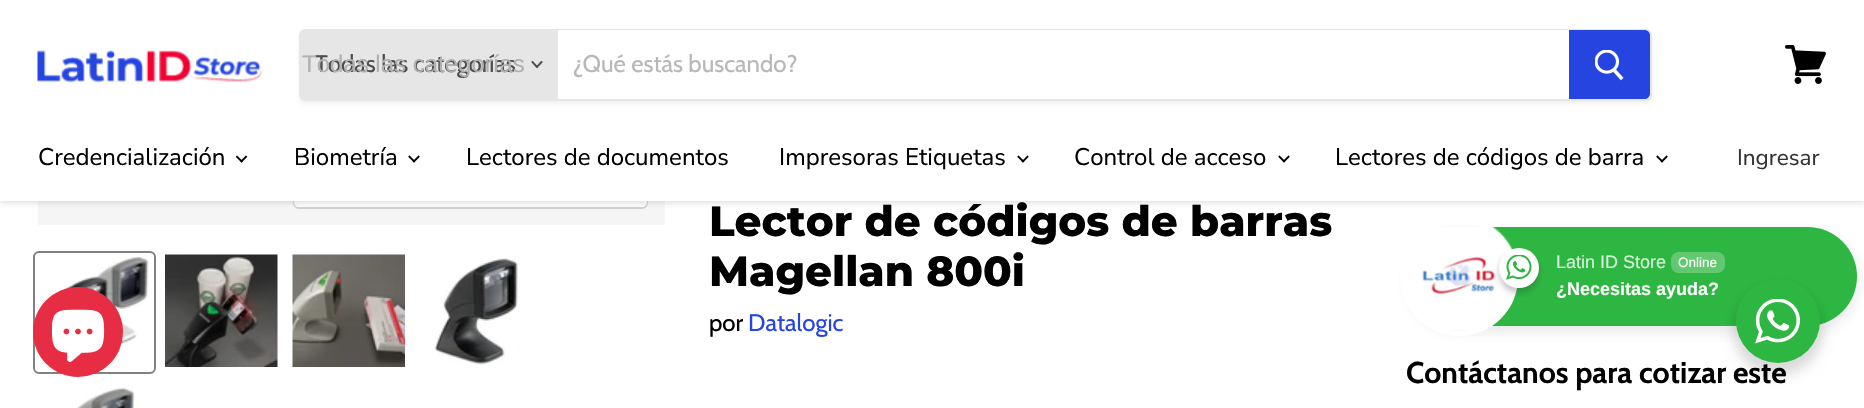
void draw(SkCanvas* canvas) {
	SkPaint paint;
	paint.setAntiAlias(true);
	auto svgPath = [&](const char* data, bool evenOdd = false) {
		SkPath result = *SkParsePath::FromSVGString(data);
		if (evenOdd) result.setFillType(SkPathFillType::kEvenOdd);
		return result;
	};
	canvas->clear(0xffffffff);
	paint.setColor(0xfff5f5f5);
	canvas->drawRect(SkRect::MakeXYWH(38, 201, 627, 24), paint);
	paint.setStroke(true);
	paint.setStrokeWidth(2);
	paint.setColor(0xffd0d0d0);
	canvas->drawRoundRect(SkRect::MakeXYWH(294, 165, 353, 43), 5, 5, paint);
	paint.setStroke(false);
	paint.setColor(0xe6ffffff);
	canvas->drawPath(svgPath("M294 197H647V202C647 205 645 207 642 207H299C296 207 294 205 294 202Z"), paint);
	paint.setColor(0x40808080);
	paint.setMaskFilter(SkMaskFilter::MakeBlur(kNormal_SkBlurStyle, 3));
	canvas->drawRect(SkRect::MakeXYWH(0, 2, 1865, 201), paint);
	paint.setMaskFilter(nullptr);
	paint.setColor(0xffffffff);
	canvas->drawRect(SkRect::MakeXYWH(0, 0, 1864, 201), paint);
	canvas->drawImageRect(SkImages::DeferredFromEncodedData(SkData::MakeFromFileName("img1.png")), SkRect::MakeXYWH(37, 50, 226, 33), SkSamplingOptions());
	canvas->save();
	canvas->clipPath(svgPath("M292 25H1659V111H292ZM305 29H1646C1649.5 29 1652 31.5 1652 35V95C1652 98.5 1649.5 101 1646 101H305C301.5 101 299 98.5 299 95V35C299 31.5 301.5 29 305 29Z", true), true);
	paint.setColor(0x1c808080);
	paint.setMaskFilter(SkMaskFilter::MakeBlur(kNormal_SkBlurStyle, 2));
	canvas->drawRoundRect(SkRect::MakeXYWH(299, 32, 1353, 72), 6, 6, paint);
	paint.setMaskFilter(nullptr);
	canvas->restore();
	paint.setStroke(true);
	paint.setColor(0x33808080);
	canvas->drawRoundRect(SkRect::MakeXYWH(300, 30, 1351, 70), 5, 5, paint);
	paint.setStroke(false);
	paint.setColor(0xffe6e6e6);
	canvas->drawPath(svgPath("M305 30H558V99H305C302 99 300 97 300 94V35C300 32 302 30 305 30Z"), paint);
	SkFont f1(fontMgr->matchFamilyStyle("Cabin", SkFontStyle::Normal()), 24);
	f1.setSubpixel(true);
	paint.setColor(0xff4d4d4d);
	canvas->drawString("Todas las categorías", 315, 72, f1, paint);
	SkFont f2(fontMgr->matchFamilyStyle("Liberation Sans", SkFontStyle::Normal()), 24);
	f2.setSubpixel(true);
	paint.setColor(0xffb1b1b1);
	canvas->drawString("Todas las categorías", 302, 72, f2, paint);
	paint.setStroke(true);
	paint.setStrokeWidth(1.9);
	paint.setStrokeCap(SkPaint::kSquare_Cap);
	paint.setColor(0xff4d4d4d);
	canvas->drawPath(svgPath("M537 67L541.5 62M537 67L532.5 62"), paint);
	paint.setStroke(false);
	paint.setColor(0xffffffff);
	canvas->drawRect(SkRect::MakeXYWH(558, 30, 1011, 1), paint);
	paint.setColor(0xffb8b8b8);
	canvas->drawString("¿Qué estás buscando?", 573, 72, f1, paint);
	paint.setColor(0xff2645e0);
	canvas->drawPath(svgPath("M1570 31H1645C1647 31 1649 33 1649 35V94C1649 96 1647 98 1645 98H1570Z"), paint);
	paint.setStroke(true);
	paint.setStrokeWidth(2);
	paint.setStrokeCap(SkPaint::kButt_Cap);
	canvas->drawPath(svgPath("M1570 31H1645C1647 31 1649 33 1649 35V94C1649 96 1647 98 1645 98H1570Z"), paint);
	canvas->drawImageRect(SkImages::DeferredFromEncodedData(SkData::MakeFromFileName("img2.png")), SkRect::MakeXYWH(1595, 50, 29, 31), SkSamplingOptions());
	canvas->drawImageRect(SkImages::DeferredFromEncodedData(SkData::MakeFromFileName("img3.png")), SkRect::MakeXYWH(1785, 45, 41, 39), SkSamplingOptions());
	SkFont f3(fontMgr->matchFamilyStyle("Nunito Sans", SkFontStyle::Normal()), 24);
	f3.setSubpixel(true);
	paint.setStroke(false);
	paint.setColor(0xff000000);
	canvas->drawString("Credencialización", 38, 165, f3, paint);
	canvas->drawImageRect(SkImages::DeferredFromEncodedData(SkData::MakeFromFileName("img4.png")), SkRect::MakeXYWH(236, 155, 12, 8), SkSamplingOptions());
	canvas->drawString("Biometría", 294, 165, f3, paint);
	canvas->drawImageRect(SkImages::DeferredFromEncodedData(SkData::MakeFromFileName("img5.png")), SkRect::MakeXYWH(408, 155, 12, 8), SkSamplingOptions());
	canvas->drawString("Lectores de documentos", 466, 165, f3, paint);
	canvas->drawString("Impresoras Etiquetas", 779, 165, f3, paint);
	canvas->drawImageRect(SkImages::DeferredFromEncodedData(SkData::MakeFromFileName("img5.png")), SkRect::MakeXYWH(1017, 155, 12, 8), SkSamplingOptions());
	canvas->drawString("Control de acceso", 1074, 165, f3, paint);
	canvas->drawImageRect(SkImages::DeferredFromEncodedData(SkData::MakeFromFileName("img5.png")), SkRect::MakeXYWH(1278, 155, 12, 8), SkSamplingOptions());
	canvas->drawString("Lectores de códigos de barra", 1335, 165, f3, paint);
	canvas->drawImageRect(SkImages::DeferredFromEncodedData(SkData::MakeFromFileName("img5.png")), SkRect::MakeXYWH(1656, 155, 12, 8), SkSamplingOptions());
	SkFont f4(fontMgr->matchFamilyStyle("Nunito Sans", SkFontStyle::Normal()), 22.5);
	f4.setSubpixel(true);
	paint.setColor(0xff333333);
	canvas->drawString("Ingresar", 1737, 165, f4, paint);
	paint.setStroke(true);
	paint.setColor(0xff818181);
	canvas->drawRoundRect(SkRect::MakeXYWH(34, 252, 121, 121), 5, 5, paint);
	canvas->drawImageRect(SkImages::DeferredFromEncodedData(SkData::MakeFromFileName("img6.png")), SkRect::MakeXYWH(38, 256, 111, 111), SkSamplingOptions());
	canvas->drawImageRect(SkImages::DeferredFromEncodedData(SkData::MakeFromFileName("img7.png")), SkRect::MakeXYWH(165, 254, 113, 113), SkSamplingOptions());
	canvas->drawImageRect(SkImages::DeferredFromEncodedData(SkData::MakeFromFileName("img8.png")), SkRect::MakeXYWH(292, 254, 113, 113), SkSamplingOptions());
	canvas->drawImageRect(SkImages::DeferredFromEncodedData(SkData::MakeFromFileName("img9.png")), SkRect::MakeXYWH(434, 258, 86, 107), SkSamplingOptions());
	canvas->drawImageRect(SkImages::DeferredFromEncodedData(SkData::MakeFromFileName("img10.png")), SkRect::MakeXYWH(76, 387, 59, 21), SkSamplingOptions());
	SkFont f5(fontMgr->matchFamilyStyle("Montserrat", SkFontStyle(800, SkFontStyle::kNormal_Width, SkFontStyle::kUpright_Slant)), 42);
	f5.setSubpixel(true);
	paint.setStroke(false);
	paint.setColor(0xff000000);
	canvas->drawString("Lector de códigos de barras", 709, 236, f5, paint);
	canvas->drawString("Magellan 800i", 709, 286, f5, paint);
	canvas->drawString("por", 709, 331, f1, paint);
	paint.setColor(0xff2645e0);
	canvas->drawString("Datalogic", 748, 331, f1, paint);
	paint.setColor(0x17202025);
	paint.setMaskFilter(SkMaskFilter::MakeBlur(kNormal_SkBlurStyle, 6));
	canvas->drawRoundRect(SkRect::MakeXYWH(1406, 231, 453, 102), 51, 51, paint);
	paint.setMaskFilter(nullptr);
	paint.setColor(0xff2db742);
	canvas->drawRoundRect(SkRect::MakeXYWH(1407, 227, 450, 99), 49.5, 49.5, paint);
	canvas->drawImageRect(SkImages::DeferredFromEncodedData(SkData::MakeFromFileName("img11.png")), SkRect::MakeXYWH(1404, 227, 110, 104), SkSamplingOptions());
	paint.setStroke(true);
	paint.setStrokeWidth(5);
	paint.setColor(0xffffffff);
	canvas->drawCircle(1459, 277, 56.5, paint);
	paint.setStroke(false);
	paint.setColor(0x42272626);
	paint.setMaskFilter(SkMaskFilter::MakeBlur(kNormal_SkBlurStyle, 3));
	canvas->drawRoundRect(SkRect::MakeXYWH(1499, 252, 40, 41), 20, 20, paint);
	paint.setMaskFilter(nullptr);
	paint.setColor(0xffffffff);
	canvas->drawCircle(1519, 268, 20, paint);
	canvas->drawImageRect(SkImages::DeferredFromEncodedData(SkData::MakeFromFileName("img12.png")), SkRect::MakeXYWH(1506, 255, 26, 25), SkSamplingOptions());
	SkFont f6(fontMgr->matchFamilyStyle("Liberation Sans", SkFontStyle::Normal()), 18);
	f6.setSubpixel(true);
	paint.setColor(0xffd5f0d9);
	canvas->drawString("Latin ID Store", 1556, 268, f6, paint);
	paint.setColor(0xff62c971);
	canvas->drawRoundRect(SkRect::MakeXYWH(1671, 252, 54, 21), 8, 8, paint);
	SkFont f7(fontMgr->matchFamilyStyle("Liberation Sans", SkFontStyle::Normal()), 13.5);
	f7.setSubpixel(true);
	paint.setColor(0xffffffff);
	canvas->drawString("Online", 1678, 267, f7, paint);
	SkFont f8(fontMgr->matchFamilyStyle("Liberation Sans", SkFontStyle::Bold()), 18);
	f8.setSubpixel(true);
	canvas->drawString("¿Necesitas ayuda?", 1556, 295, f8, paint);
	SkFont f9(fontMgr->matchFamilyStyle("Cabin", SkFontStyle::Bold()), 30);
	f9.setSubpixel(true);
	paint.setColor(0xff000000);
	canvas->drawString("Contáctanos para cotizar este", 1406, 383, f9, paint);
	paint.setColor(0xffe62d44);
	canvas->drawCircle(78, 332, 45, paint);
	canvas->drawImageRect(SkImages::DeferredFromEncodedData(SkData::MakeFromFileName("img13.png")), SkRect::MakeXYWH(51, 309, 54, 53), SkSamplingOptions());
	paint.setColor(0x24000000);
	paint.setMaskFilter(SkMaskFilter::MakeBlur(kNormal_SkBlurStyle, 6));
	canvas->drawRoundRect(SkRect::MakeXYWH(1733, 285, 90, 90), 45, 45, paint);
	paint.setMaskFilter(nullptr);
	paint.setColor(0xff2db742);
	canvas->drawCircle(1778, 321, 42, paint);
	canvas->drawImageRect(SkImages::DeferredFromEncodedData(SkData::MakeFromFileName("img14.png")), SkRect::MakeXYWH(1755, 299, 45, 45), SkSamplingOptions());
}
